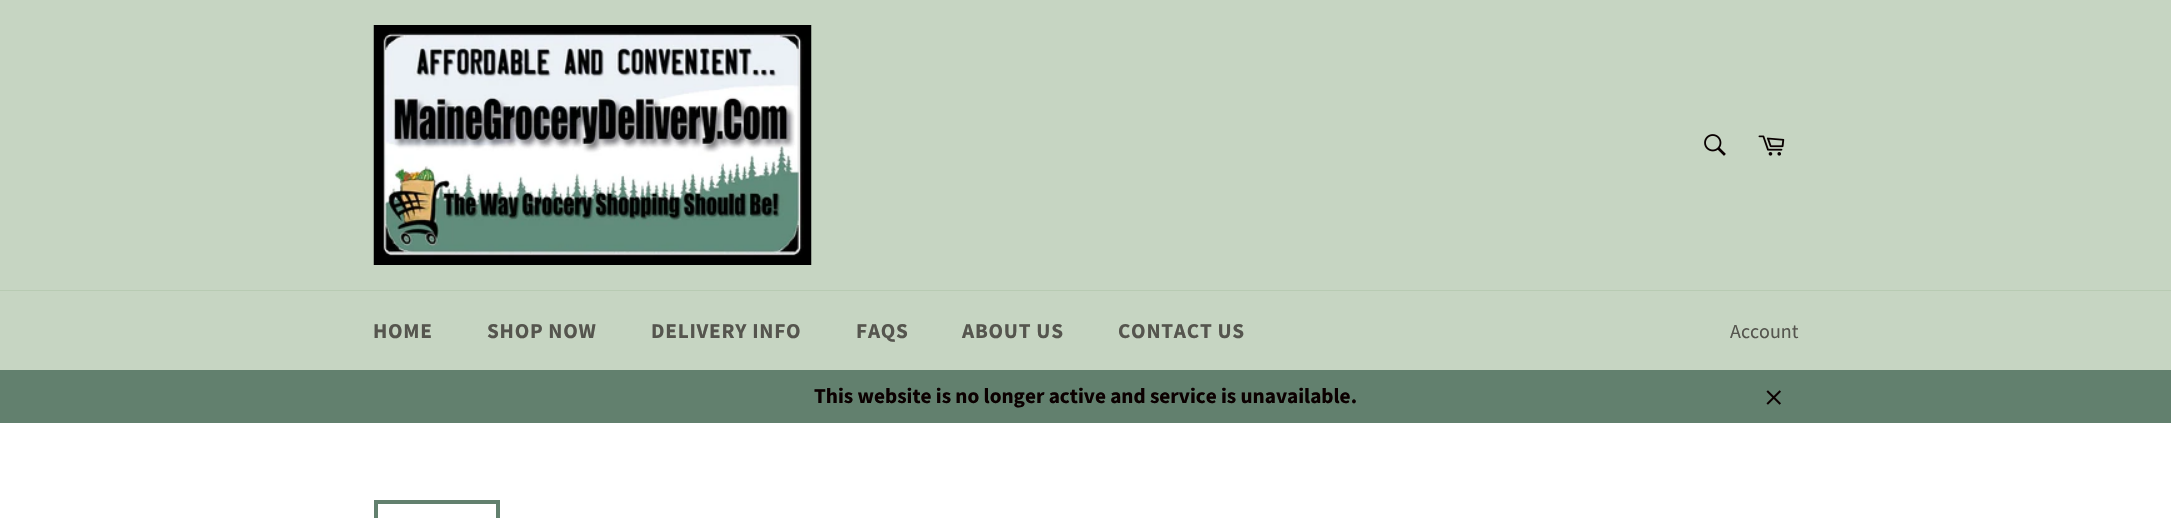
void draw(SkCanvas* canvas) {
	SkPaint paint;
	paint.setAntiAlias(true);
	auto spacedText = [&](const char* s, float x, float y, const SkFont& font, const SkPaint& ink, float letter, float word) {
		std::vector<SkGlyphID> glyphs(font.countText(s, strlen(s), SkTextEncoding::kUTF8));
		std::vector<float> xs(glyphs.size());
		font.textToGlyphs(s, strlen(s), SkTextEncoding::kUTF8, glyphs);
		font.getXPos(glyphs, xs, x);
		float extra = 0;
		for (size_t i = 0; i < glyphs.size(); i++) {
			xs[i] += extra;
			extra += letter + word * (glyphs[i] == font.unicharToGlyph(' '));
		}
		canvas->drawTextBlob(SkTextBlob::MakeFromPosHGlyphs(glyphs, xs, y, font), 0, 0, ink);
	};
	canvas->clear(0xffc6d5c2);
	canvas->drawImageRect(SkImages::DeferredFromEncodedData(SkData::MakeFromFileName("img1.png")), SkRect::MakeXYWH(373, 25, 439, 240), SkSamplingOptions());
	canvas->drawImageRect(SkImages::DeferredFromEncodedData(SkData::MakeFromFileName("img2.png")), SkRect::MakeXYWH(1704, 134, 22, 22), SkSamplingOptions());
	canvas->drawImageRect(SkImages::DeferredFromEncodedData(SkData::MakeFromFileName("img3.png")), SkRect::MakeXYWH(1758, 135, 27, 21), SkSamplingOptions());
	paint.setColor(0xffb8cbb3);
	canvas->drawRect(SkRect::MakeXYWH(0, 290, 2171, 1), paint);
	SkFont f1(fontMgr->matchFamilyStyle("Source Sans Pro", SkFontStyle::Bold()), 21.25);
	f1.setSubpixel(true);
	paint.setColor(0xff55554e);
	spacedText("HOME", 373, 338, f1, paint, 0.75, 0);
	spacedText("SHOP NOW", 487, 338, f1, paint, 0.75, 0);
	spacedText("DELIVERY INFO", 651, 338, f1, paint, 0.75, 0);
	spacedText("FAQS", 856, 338, f1, paint, 0.75, 0);
	spacedText("ABOUT US", 962, 338, f1, paint, 0.75, 0);
	spacedText("CONTACT US", 1118, 338, f1, paint, 0.75, 0);
	SkFont f2(fontMgr->matchFamilyStyle("Source Sans Pro", SkFontStyle::Normal()), 20);
	f2.setSubpixel(true);
	canvas->drawString("Account", 1730, 338, f2, paint);
	paint.setColor(0xff62806e);
	canvas->drawRect(SkRect::MakeXYWH(0, 370, 2171, 53), paint);
	paint.setColor(0xff0b0000);
	canvas->drawString("This website is no longer active and service is unavailable.", 814, 403, f1, paint);
	canvas->drawImageRect(SkImages::DeferredFromEncodedData(SkData::MakeFromFileName("img4.png")), SkRect::MakeXYWH(1766, 390, 15, 15), SkSamplingOptions());
	paint.setColor(0xffffffff);
	canvas->drawRect(SkRect::MakeXYWH(0, 423, 2171, 95), paint);
	paint.setStroke(true);
	paint.setStrokeWidth(4);
	paint.setColor(0xff62806e);
	canvas->drawRect(SkRect::MakeXYWH(376, 502, 122, 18), paint);
}
